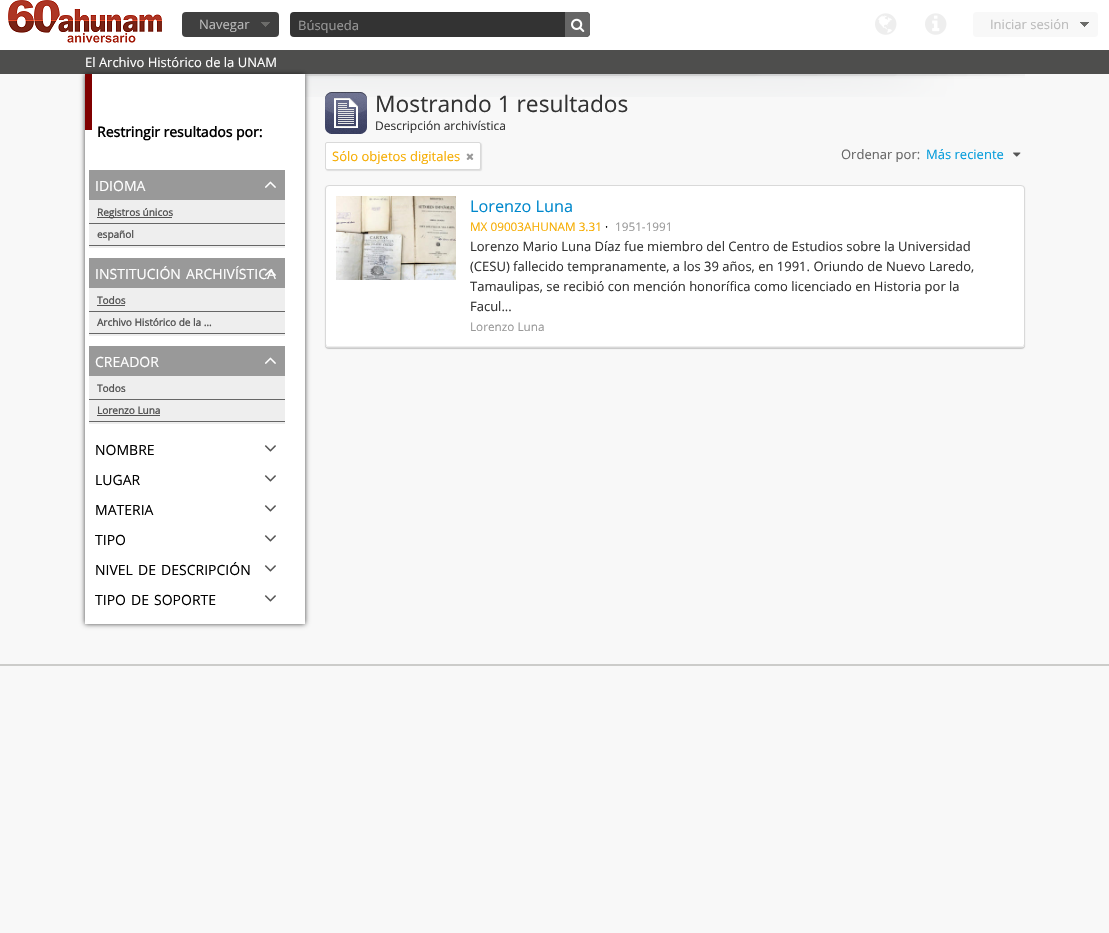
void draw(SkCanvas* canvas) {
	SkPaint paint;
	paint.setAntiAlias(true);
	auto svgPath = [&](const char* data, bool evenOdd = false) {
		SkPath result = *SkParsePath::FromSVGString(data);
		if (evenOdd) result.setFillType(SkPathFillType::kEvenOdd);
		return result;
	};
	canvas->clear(0xfff8f8f8);
	paint.setColor(0xffffffff);
	canvas->drawRect(SkRect::MakeXYWH(0, 0, 1109, 50), paint);
	canvas->drawImageRect(SkImages::DeferredFromEncodedData(SkData::MakeFromFileName("img1.png")), SkRect::MakeXYWH(8, 0, 154, 43), SkSamplingOptions());
	paint.setColor(0xff404040);
	canvas->drawRoundRect(SkRect::MakeXYWH(182, 12, 97, 25), 4, 4, paint);
	canvas->drawImageRect(SkImages::DeferredFromEncodedData(SkData::MakeFromFileName("img2.png")), SkRect::MakeXYWH(261, 22, 9, 5), SkSamplingOptions());
	SkFont f1(fontMgr->matchFamilyStyle("Open Sans", SkFontStyle::Normal()), 13);
	f1.setSubpixel(true);
	paint.setColor(0xffbbbbbb);
	canvas->drawString("Navegar", 199, 29, f1, paint);
	paint.setColor(0xff333333);
	canvas->drawRoundRect(SkRect::MakeXYWH(290, 12, 300, 25), 4, 4, paint);
	paint.setColor(0x12000000);
	canvas->drawPath(svgPath("M294 13H588C589 13 590 14 590 16C590 14 588 12 586 12H294C291 12 290 14 290 16C290 14 292 13 294 13Z"), paint);
	paint.setColor(0xff999999);
	canvas->drawString("Búsqueda", 298, 30, f1, paint);
	paint.setColor(0xff666666);
	canvas->drawPath(svgPath("M565 12H586C588 12 590 14 590 16V33C590 35 588 37 586 37H565Z"), paint);
	canvas->drawImageRect(SkImages::DeferredFromEncodedData(SkData::MakeFromFileName("img3.png")), SkRect::MakeXYWH(571, 18, 14, 14), SkSamplingOptions());
	canvas->drawImageRect(SkImages::DeferredFromEncodedData(SkData::MakeFromFileName("img4.png")), SkRect::MakeXYWH(875, 13, 22, 22), SkSamplingOptions());
	canvas->drawImageRect(SkImages::DeferredFromEncodedData(SkData::MakeFromFileName("img5.png")), SkRect::MakeXYWH(925, 13, 22, 22), SkSamplingOptions());
	paint.setColor(0xfff8f8f8);
	canvas->drawRoundRect(SkRect::MakeXYWH(973, 12, 125, 25), 4, 4, paint);
	canvas->drawImageRect(SkImages::DeferredFromEncodedData(SkData::MakeFromFileName("img6.png")), SkRect::MakeXYWH(1080, 22, 9, 5), SkSamplingOptions());
	paint.setColor(0xffbbbbbb);
	canvas->drawString("Iniciar sesión", 990, 29, f1, paint);
	canvas->drawImageRect(SkImages::DeferredFromEncodedData(SkData::MakeFromFileName("img7.png")), SkRect::MakeXYWH(305, 74, 720, 23), SkSamplingOptions());
	paint.setColor(0xff444444);
	paint.setMaskFilter(SkMaskFilter::MakeBlur(kNormal_SkBlurStyle, 2.5));
	canvas->drawRect(SkRect::MakeXYWH(85, 74, 220, 550), paint);
	paint.setMaskFilter(nullptr);
	paint.setColor(0xbf161514);
	canvas->drawRect(SkRect::MakeXYWH(0, 50, 1109, 24), paint);
	paint.setColor(0xffffffff);
	canvas->drawString("El Archivo Histórico de la UNAM", 85, 67, f1, paint);
	canvas->drawRect(SkRect::MakeXYWH(85, 74, 220, 550), paint);
	paint.setColor(0xff800000);
	canvas->drawRect(SkRect::MakeXYWH(85, 74, 7, 56), paint);
	SkFont f2(fontMgr->matchFamilyStyle("Open Sans", SkFontStyle::Bold()), 14);
	f2.setSubpixel(true);
	paint.setColor(0xff000000);
	canvas->drawString("Restringir resultados por:", 97, 137, f2, paint);
	paint.setColor(0xff999999);
	canvas->drawRect(SkRect::MakeXYWH(89, 170, 196, 30), paint);
	SkFont f3(fontMgr->matchFamilyStyle("Open Sans", SkFontStyle::Normal()), 14);
	f3.setSubpixel(true);
	paint.setColor(0xffffffff);
	canvas->drawString("IDIOMA", 95, 191, f3, paint);
	canvas->drawImageRect(SkImages::DeferredFromEncodedData(SkData::MakeFromFileName("img8.png")), SkRect::MakeXYWH(265, 181, 11, 7), SkSamplingOptions());
	paint.setColor(0xffeeeeee);
	canvas->drawRect(SkRect::MakeXYWH(89, 200, 196, 48), paint);
	paint.setColor(0xff666666);
	canvas->drawRect(SkRect::MakeXYWH(89, 223, 196, 1), paint);
	paint.setColor(0xff555555);
	canvas->drawRect(SkRect::MakeXYWH(97, 217, 75, 1), paint);
	SkFont f4(fontMgr->matchFamilyStyle("Open Sans", SkFontStyle::Bold()), 10);
	f4.setSubpixel(true);
	canvas->drawString("Registros únicos", 97, 216, f4, paint);
	paint.setColor(0xff666666);
	canvas->drawRect(SkRect::MakeXYWH(89, 245, 196, 1), paint);
	paint.setColor(0xff555555);
	canvas->drawString("español", 97, 238, f4, paint);
	paint.setColor(0xff999999);
	canvas->drawRect(SkRect::MakeXYWH(89, 258, 196, 30), paint);
	paint.setColor(0xffffffff);
	canvas->drawString("INSTITUCIÓN", 95, 279, f3, paint);
	canvas->drawString("ARCHIVÍSTICA", 186, 279, f3, paint);
	canvas->drawImageRect(SkImages::DeferredFromEncodedData(SkData::MakeFromFileName("img9.png")), SkRect::MakeXYWH(265, 269, 11, 7), SkSamplingOptions());
	paint.setColor(0xffeeeeee);
	canvas->drawRect(SkRect::MakeXYWH(89, 288, 196, 48), paint);
	paint.setColor(0xff666666);
	canvas->drawRect(SkRect::MakeXYWH(89, 311, 196, 1), paint);
	paint.setColor(0xff555555);
	canvas->drawString("Todos", 97, 304, f4, paint);
	canvas->drawRect(SkRect::MakeXYWH(97, 305, 28, 1), paint);
	paint.setColor(0xff666666);
	canvas->drawRect(SkRect::MakeXYWH(89, 333, 196, 1), paint);
	paint.setColor(0xff555555);
	canvas->drawString("Archivo Histórico de la …", 97, 326, f4, paint);
	paint.setColor(0xff999999);
	canvas->drawRect(SkRect::MakeXYWH(89, 346, 196, 30), paint);
	paint.setColor(0xffffffff);
	canvas->drawString("CREADOR", 95, 367, f3, paint);
	canvas->drawImageRect(SkImages::DeferredFromEncodedData(SkData::MakeFromFileName("img8.png")), SkRect::MakeXYWH(265, 357, 11, 7), SkSamplingOptions());
	paint.setColor(0xffeeeeee);
	canvas->drawRect(SkRect::MakeXYWH(89, 376, 196, 48), paint);
	paint.setColor(0xff666666);
	canvas->drawRect(SkRect::MakeXYWH(89, 399, 196, 1), paint);
	paint.setColor(0xff555555);
	canvas->drawString("Todos", 97, 392, f4, paint);
	paint.setColor(0xff666666);
	canvas->drawRect(SkRect::MakeXYWH(89, 421, 196, 1), paint);
	paint.setColor(0xff555555);
	canvas->drawString("Lorenzo Luna", 97, 414, f4, paint);
	canvas->drawRect(SkRect::MakeXYWH(97, 415, 63, 1), paint);
	paint.setColor(0xff000000);
	canvas->drawString("NOMBRE", 95, 455, f3, paint);
	canvas->drawImageRect(SkImages::DeferredFromEncodedData(SkData::MakeFromFileName("img10.png")), SkRect::MakeXYWH(264, 445, 12, 7), SkSamplingOptions());
	canvas->drawString("LUGAR", 95, 485, f3, paint);
	canvas->drawImageRect(SkImages::DeferredFromEncodedData(SkData::MakeFromFileName("img10.png")), SkRect::MakeXYWH(264, 475, 12, 7), SkSamplingOptions());
	canvas->drawString("MATERIA", 95, 515, f3, paint);
	canvas->drawImageRect(SkImages::DeferredFromEncodedData(SkData::MakeFromFileName("img10.png")), SkRect::MakeXYWH(264, 505, 12, 7), SkSamplingOptions());
	canvas->drawString("TIPO", 95, 545, f3, paint);
	canvas->drawImageRect(SkImages::DeferredFromEncodedData(SkData::MakeFromFileName("img10.png")), SkRect::MakeXYWH(264, 535, 12, 7), SkSamplingOptions());
	canvas->drawString("NIVEL", 95, 575, f3, paint);
	canvas->drawString("DE", 138, 575, f3, paint);
	canvas->drawString("DESCRIPCIÓN", 161, 575, f3, paint);
	canvas->drawImageRect(SkImages::DeferredFromEncodedData(SkData::MakeFromFileName("img10.png")), SkRect::MakeXYWH(264, 565, 12, 7), SkSamplingOptions());
	canvas->drawString("TIPO", 95, 605, f3, paint);
	canvas->drawString("DE", 131, 605, f3, paint);
	canvas->drawString("SOPORTE", 154, 605, f3, paint);
	canvas->drawImageRect(SkImages::DeferredFromEncodedData(SkData::MakeFromFileName("img10.png")), SkRect::MakeXYWH(264, 595, 12, 7), SkSamplingOptions());
	canvas->drawImageRect(SkImages::DeferredFromEncodedData(SkData::MakeFromFileName("img11.png")), SkRect::MakeXYWH(325, 92, 42, 42), SkSamplingOptions());
	SkFont f5(fontMgr->matchFamilyStyle("Open Sans", SkFontStyle::Normal()), 22.75);
	f5.setSubpixel(true);
	paint.setColor(0xff333333);
	canvas->drawString("Mostrando 1 resultados", 375, 112, f5, paint);
	SkFont f6(fontMgr->matchFamilyStyle("Open Sans", SkFontStyle::Normal()), 12);
	f6.setSubpixel(true);
	canvas->drawString("Descripción archivística", 375, 130, f6, paint);
	paint.setColor(0x1a000000);
	paint.setMaskFilter(SkMaskFilter::MakeBlur(kNormal_SkBlurStyle, 0.5));
	canvas->drawRoundRect(SkRect::MakeXYWH(326, 143, 156, 28), 2, 2, paint);
	paint.setMaskFilter(nullptr);
	paint.setColor(0xffffffff);
	canvas->drawRoundRect(SkRect::MakeXYWH(325.5, 142.5, 155, 27), 1.5, 1.5, paint);
	paint.setStroke(true);
	paint.setStrokeWidth(1);
	paint.setColor(0xffd9d9d9);
	canvas->drawRoundRect(SkRect::MakeXYWH(325.5, 142.5, 155, 27), 1.5, 1.5, paint);
	paint.setStroke(false);
	paint.setColor(0xfff6ac00);
	canvas->drawString("Sólo objetos digitales", 332, 161, f1, paint);
	canvas->drawImageRect(SkImages::DeferredFromEncodedData(SkData::MakeFromFileName("img12.png")), SkRect::MakeXYWH(466, 153, 8, 7), SkSamplingOptions());
	paint.setColor(0xff666666);
	canvas->drawString("Ordenar por:", 841, 159, f1, paint);
	paint.setColor(0xff049cdb);
	canvas->drawString("Más reciente", 926, 159, f1, paint);
	canvas->drawImageRect(SkImages::DeferredFromEncodedData(SkData::MakeFromFileName("img13.png")), SkRect::MakeXYWH(1013, 152, 8, 5), SkSamplingOptions());
	paint.setColor(0x33000000);
	paint.setMaskFilter(SkMaskFilter::MakeBlur(kNormal_SkBlurStyle, 0.5));
	canvas->drawRoundRect(SkRect::MakeXYWH(325, 186, 700, 163), 4, 4, paint);
	paint.setMaskFilter(nullptr);
	paint.setColor(0xffffffff);
	canvas->drawRoundRect(SkRect::MakeXYWH(325.5, 185.5, 699, 162), 3.5, 3.5, paint);
	paint.setStroke(true);
	paint.setColor(0xffd9d9d9);
	canvas->drawRoundRect(SkRect::MakeXYWH(325.5, 185.5, 699, 162), 3.5, 3.5, paint);
	paint.setStroke(false);
	paint.setColor(0xffeeeeee);
	canvas->drawRect(SkRect::MakeXYWH(326, 346, 698, 1), paint);
	canvas->drawImageRect(SkImages::DeferredFromEncodedData(SkData::MakeFromFileName("img14.png")), SkRect::MakeXYWH(336, 196, 120, 84), SkSamplingOptions());
	SkFont f7(fontMgr->matchFamilyStyle("Open Sans", SkFontStyle::Normal()), 16.25);
	f7.setSubpixel(true);
	paint.setColor(0xff0088cc);
	canvas->drawString("Lorenzo Luna", 470, 212, f7, paint);
	SkFont f8(fontMgr->matchFamilyStyle("Open Sans", SkFontStyle::Normal()), 11.75);
	f8.setSubpixel(true);
	paint.setColor(0xfff6ac00);
	canvas->drawString("MX 09003AHUNAM 3.31", 470, 231, f8, paint);
	paint.setColor(0xff000000);
	canvas->drawString("·", 605, 231, f8, paint);
	paint.setColor(0xff999999);
	canvas->drawString("1951-1991", 615, 231, f8, paint);
	paint.setColor(0xff333333);
	canvas->drawString("Lorenzo Mario Luna Díaz fue miembro del Centro de Estudios sobre la Universidad", 470, 251, f1, paint);
	canvas->drawString("(CESU) fallecido tempranamente, a los 39 años, en 1991. Oriundo de Nuevo Laredo,", 470, 271, f1, paint);
	canvas->drawString("Tamaulipas, se recibió con mención honorífica como licenciado en Historia por la", 470, 291, f1, paint);
	canvas->drawString("Facul...", 470, 311, f1, paint);
	paint.setColor(0xff999999);
	canvas->drawString("Lorenzo Luna", 470, 331, f8, paint);
	paint.setColor(0xffccccca);
	canvas->drawRect(SkRect::MakeXYWH(0, 664, 1109, 2), paint);
}
